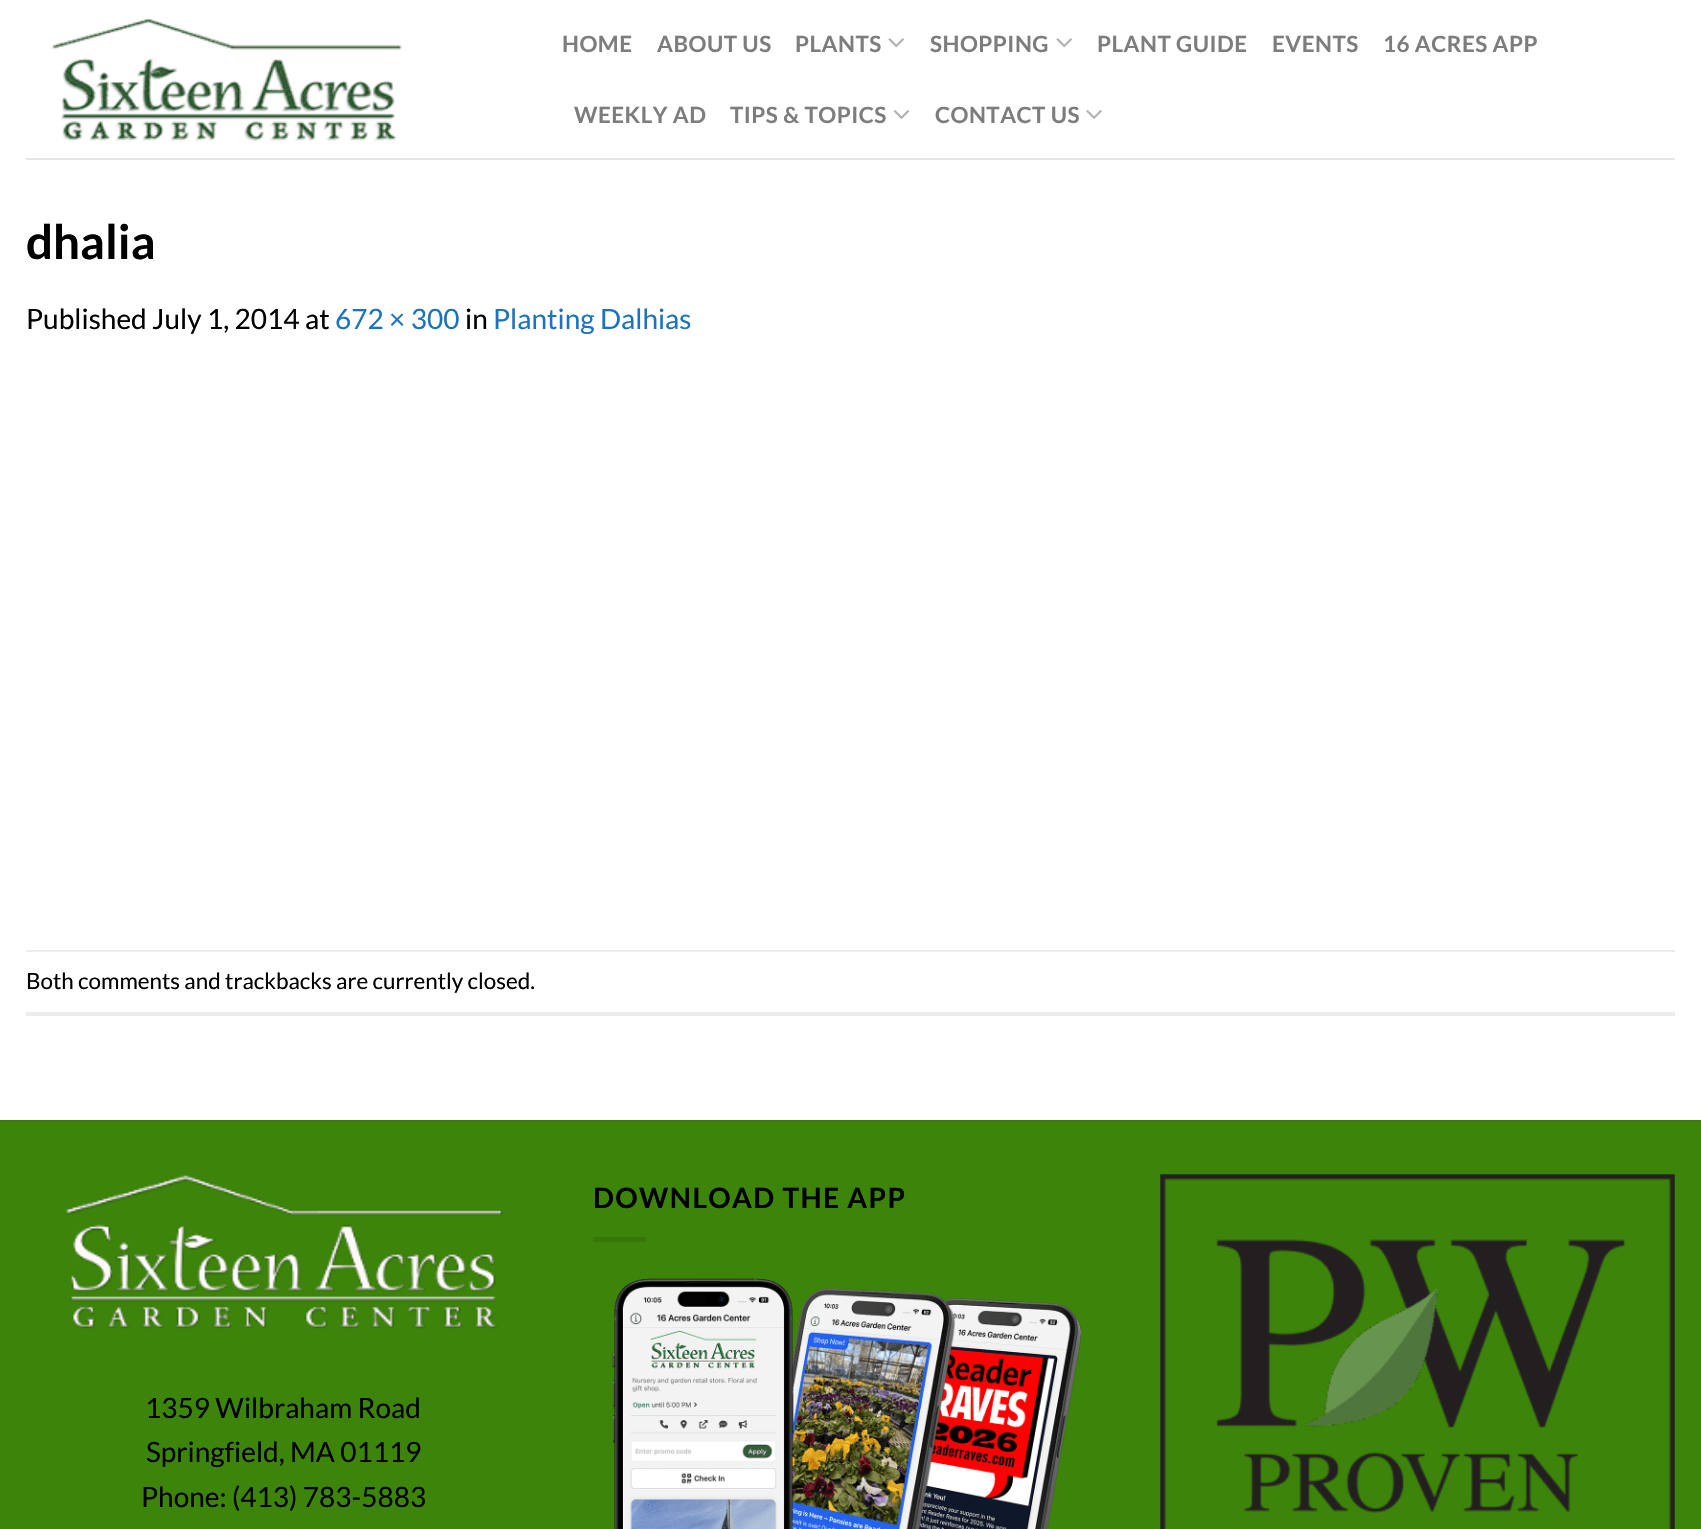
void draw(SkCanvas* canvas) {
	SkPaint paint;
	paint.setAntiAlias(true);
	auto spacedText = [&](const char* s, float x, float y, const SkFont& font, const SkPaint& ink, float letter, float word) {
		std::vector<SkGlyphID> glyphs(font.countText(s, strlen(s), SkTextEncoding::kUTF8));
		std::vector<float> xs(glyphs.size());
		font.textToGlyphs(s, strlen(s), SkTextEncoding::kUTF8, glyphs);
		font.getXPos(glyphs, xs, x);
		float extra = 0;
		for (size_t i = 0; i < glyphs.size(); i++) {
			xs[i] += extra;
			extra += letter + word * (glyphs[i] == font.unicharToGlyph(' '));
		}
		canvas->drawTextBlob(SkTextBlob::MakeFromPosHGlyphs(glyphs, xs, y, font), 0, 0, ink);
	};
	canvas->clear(0xffffffff);
	canvas->drawImageRect(SkImages::DeferredFromEncodedData(SkData::MakeFromFileName("img1.png")), SkRect::MakeXYWH(51, 18, 351, 124), SkSamplingOptions());
	SkFont f1(fontMgr->matchFamilyStyle("Lato", SkFontStyle::Bold()), 22.4);
	f1.setSubpixel(true);
	paint.setColor(0xff7d7d7d);
	spacedText("HOME", 562, 52, f1, paint, 0.5, 0);
	spacedText("ABOUT US", 657, 52, f1, paint, 0.5, 0);
	spacedText("PLANTS", 795, 52, f1, paint, 0.5, 0);
	canvas->drawImageRect(SkImages::DeferredFromEncodedData(SkData::MakeFromFileName("img2.png")), SkRect::MakeXYWH(888, 38, 16, 10), SkSamplingOptions());
	spacedText("SHOPPING", 930, 52, f1, paint, 0.5, 0);
	canvas->drawImageRect(SkImages::DeferredFromEncodedData(SkData::MakeFromFileName("img2.png")), SkRect::MakeXYWH(1056, 38, 16, 10), SkSamplingOptions());
	spacedText("PLANT GUIDE", 1097, 52, f1, paint, 0.5, 0);
	spacedText("EVENTS", 1272, 52, f1, paint, 0.5, 0);
	spacedText("16 ACRES APP", 1383, 52, f1, paint, 0.5, 0);
	spacedText("WEEKLY AD", 574, 123, f1, paint, 0.5, 0);
	spacedText("TIPS & TOPICS", 730, 123, f1, paint, 0.5, 0);
	canvas->drawImageRect(SkImages::DeferredFromEncodedData(SkData::MakeFromFileName("img3.png")), SkRect::MakeXYWH(893, 110, 17, 9), SkSamplingOptions());
	spacedText("CONTACT US", 935, 123, f1, paint, 0.5, 0);
	canvas->drawImageRect(SkImages::DeferredFromEncodedData(SkData::MakeFromFileName("img4.png")), SkRect::MakeXYWH(1086, 110, 16, 9), SkSamplingOptions());
	paint.setColor(0xffe6e6e6);
	canvas->drawRect(SkRect::MakeXYWH(26, 158, 1649, 2), paint);
	SkFont f2(fontMgr->matchFamilyStyle("Lato", SkFontStyle::Bold()), 47.5);
	f2.setSubpixel(true);
	paint.setColor(0xff000000);
	canvas->drawString("dhalia", 26, 259, f2, paint);
	SkFont f3(fontMgr->matchFamilyStyle("Lato", SkFontStyle::Normal()), 28);
	f3.setSubpixel(true);
	canvas->drawString("Published July 1, 2014 at", 26, 329, f3, paint);
	paint.setColor(0xff1e73be);
	canvas->drawString("672 × 300", 335, 329, f3, paint);
	paint.setColor(0xff000000);
	canvas->drawString("in", 465, 329, f3, paint);
	paint.setColor(0xff1e73be);
	canvas->drawString("Planting Dalhias", 493, 329, f3, paint);
	paint.setColor(0xffececec);
	canvas->drawRect(SkRect::MakeXYWH(26, 950, 1649, 2), paint);
	canvas->drawRect(SkRect::MakeXYWH(26, 1012, 1649, 4), paint);
	SkFont f4(fontMgr->matchFamilyStyle("Lato", SkFontStyle::Normal()), 22.4);
	f4.setSubpixel(true);
	paint.setColor(0xff000000);
	canvas->drawString("Both comments and trackbacks are currently closed.", 26, 989, f4, paint);
	paint.setColor(0xff3d840a);
	canvas->drawRect(SkRect::MakeXYWH(0, 1122, 1701, 407), paint);
	paint.setColor(0xff3a7d0a);
	canvas->drawRect(SkRect::MakeXYWH(0, 1120, 1701, 2), paint);
	SkFont f5(fontMgr->matchFamilyStyle("Lato", SkFontStyle::Bold()), 28);
	f5.setSubpixel(true);
	paint.setColor(0xff000000);
	spacedText("DOWNLOAD THE APP", 593, 1208, f5, paint, 1.4, 0);
	paint.setColor(0xff377709);
	canvas->drawRect(SkRect::MakeXYWH(593, 1237, 53, 5), paint);
	canvas->drawImageRect(SkImages::DeferredFromEncodedData(SkData::MakeFromFileName("img5.png")), SkRect::MakeXYWH(612, 1278, 469, 251), SkSamplingOptions());
	canvas->drawImageRect(SkImages::DeferredFromEncodedData(SkData::MakeFromFileName("img6.png")), SkRect::MakeXYWH(1160, 1174, 515, 355), SkSamplingOptions());
	canvas->drawImageRect(SkImages::DeferredFromEncodedData(SkData::MakeFromFileName("img7.png")), SkRect::MakeXYWH(66, 1174, 437, 155), SkSamplingOptions());
	paint.setColor(0xff000000);
	canvas->drawString("1359 Wilbraham Road", 145, 1418, f3, paint);
	canvas->drawString("Springfield, MA 01119", 146, 1462, f3, paint);
	canvas->drawString("Phone: (413) 783-5883", 141, 1507, f3, paint);
}
